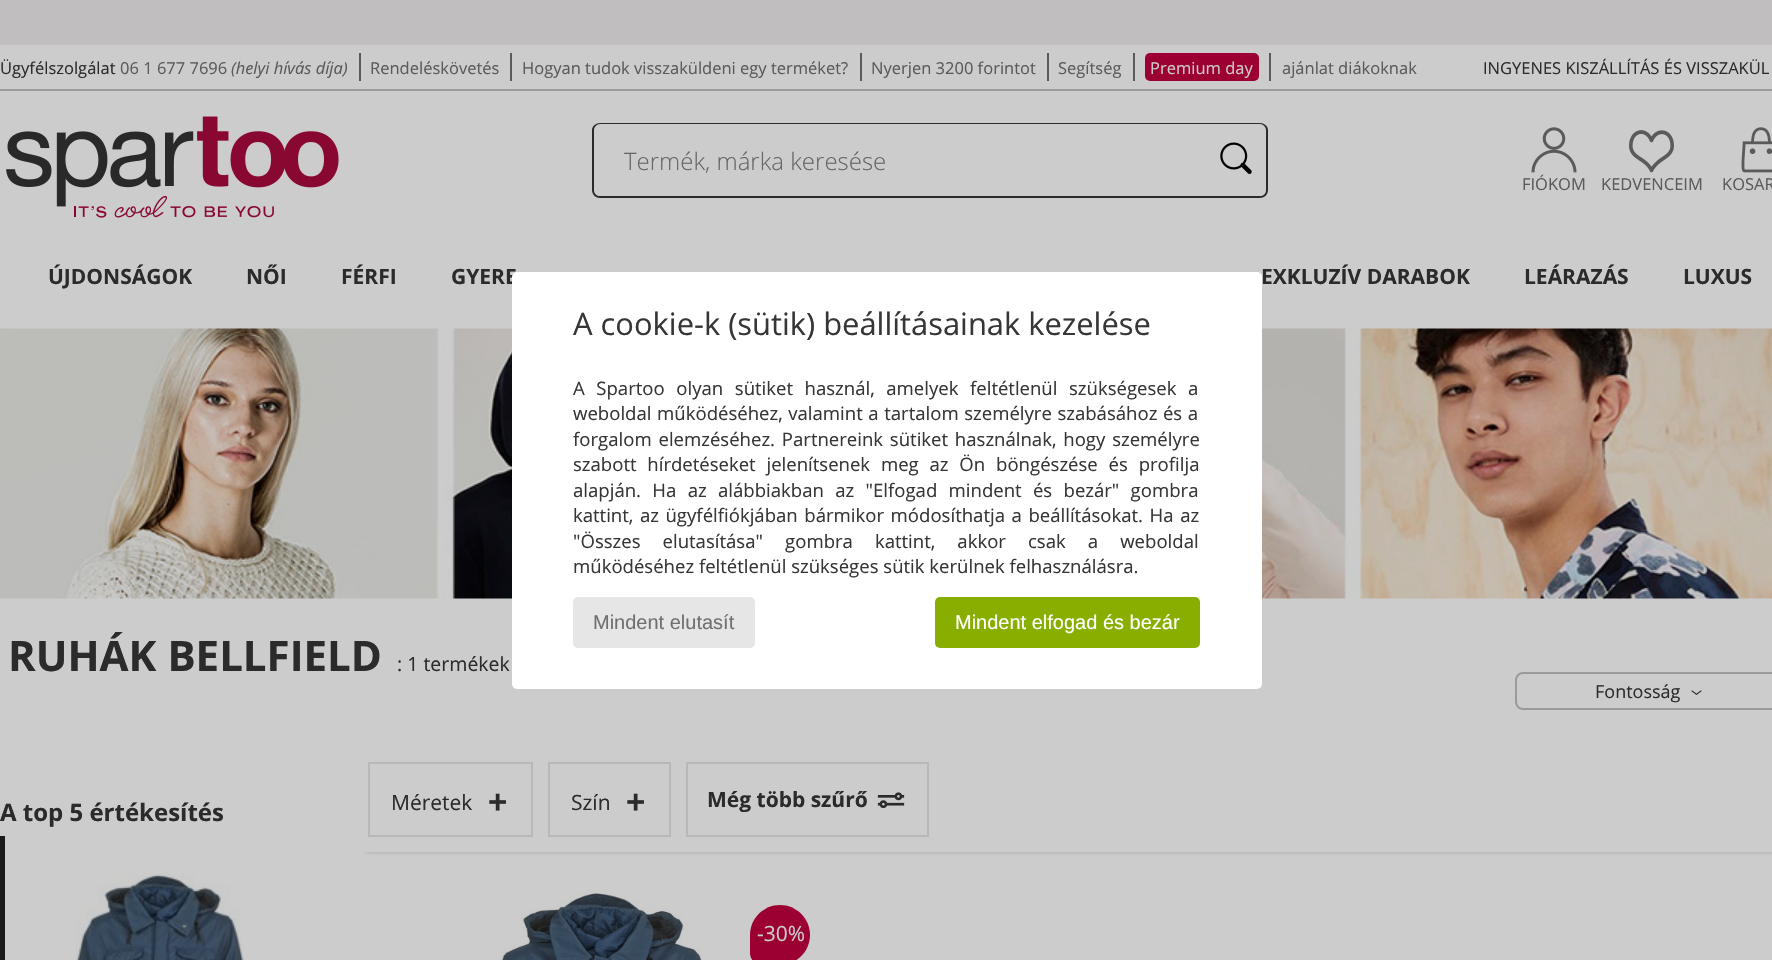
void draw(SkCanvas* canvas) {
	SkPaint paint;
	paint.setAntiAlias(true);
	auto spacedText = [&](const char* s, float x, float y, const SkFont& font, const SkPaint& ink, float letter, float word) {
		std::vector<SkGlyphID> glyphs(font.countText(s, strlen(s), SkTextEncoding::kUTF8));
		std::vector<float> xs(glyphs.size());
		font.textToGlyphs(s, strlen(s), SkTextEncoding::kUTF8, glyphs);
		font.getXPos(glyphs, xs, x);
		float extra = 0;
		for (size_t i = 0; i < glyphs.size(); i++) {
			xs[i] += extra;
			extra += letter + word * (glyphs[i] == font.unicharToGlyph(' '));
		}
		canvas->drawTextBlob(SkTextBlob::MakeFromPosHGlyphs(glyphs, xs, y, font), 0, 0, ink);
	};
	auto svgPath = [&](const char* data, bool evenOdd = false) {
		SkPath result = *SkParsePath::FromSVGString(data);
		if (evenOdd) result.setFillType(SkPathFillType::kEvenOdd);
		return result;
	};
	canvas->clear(0xffcccccc);
	paint.setColor(0xffc0bebe);
	canvas->drawRect(SkRect::MakeXYWH(0, 0, 1772, 45), paint);
	paint.setColor(0xff9a9a9a);
	canvas->drawRect(SkRect::MakeXYWH(0, 89, 1772, 2), paint);
	paint.setColor(0xff5a5a5a);
	canvas->drawRect(SkRect::MakeXYWH(359, 53, 2, 28), paint);
	SkFont f1(fontMgr->matchFamilyStyle("Open Sans", SkFontStyle::Normal()), 16.5);
	f1.setSubpixel(true);
	paint.setColor(0xff2b2b2b);
	canvas->drawString("Ügyfélszolgálat", 0, 74, f1, paint);
	paint.setColor(0xff5a5a5a);
	canvas->drawString("06 1 677 7696", 120, 74, f1, paint);
	SkFont f2(fontMgr->matchFamilyStyle("Open Sans", SkFontStyle::Italic()), 16.5);
	f2.setSubpixel(true);
	canvas->drawString("(helyi hívás díja)", 231, 74, f2, paint);
	canvas->drawRect(SkRect::MakeXYWH(510, 53, 2, 28), paint);
	canvas->drawString("Rendeléskövetés", 370, 74, f1, paint);
	canvas->drawRect(SkRect::MakeXYWH(860, 53, 2, 28), paint);
	canvas->drawString("Hogyan tudok visszaküldeni egy terméket?", 522, 74, f1, paint);
	canvas->drawRect(SkRect::MakeXYWH(1047, 53, 2, 28), paint);
	canvas->drawString("Nyerjen 3200 forintot", 871, 74, f1, paint);
	canvas->drawRect(SkRect::MakeXYWH(1133, 53, 2, 28), paint);
	canvas->drawString("Segítség", 1058, 74, f1, paint);
	canvas->drawRect(SkRect::MakeXYWH(1269, 53, 2, 28), paint);
	paint.setColor(0xff9c0033);
	canvas->drawRoundRect(SkRect::MakeXYWH(1145, 53, 114, 28), 5, 5, paint);
	paint.setColor(0xffcccccc);
	canvas->drawString("Premium day", 1150, 74, f1, paint);
	paint.setColor(0xff5a5a5a);
	canvas->drawString("ajánlat diákoknak", 1282, 74, f1, paint);
	paint.setColor(0xff2b2b2b);
	canvas->drawString("INGYENES KISZÁLLÍTÁS ÉS VISSZAKÜL", 1483, 74, f1, paint);
	canvas->drawImageRect(SkImages::DeferredFromEncodedData(SkData::MakeFromFileName("img1.png")), SkRect::MakeXYWH(6, 116, 333, 102), SkSamplingOptions());
	canvas->drawPath(svgPath("M600 123H1208V198H600C596 198 592 195 592 190V130C592 126 596 123 600 123ZM600 124H1208V196H600C597 196 594 194 594 190V130C594 127 597 124 600 124Z", true), paint);
	SkFont f3(fontMgr->matchFamilyStyle("Open Sans", SkFontStyle(300, SkFontStyle::kNormal_Width, SkFontStyle::kUpright_Slant)), 24);
	f3.setSubpixel(true);
	paint.setColor(0xff666666);
	canvas->drawString("Termék, márka keresése", 624, 170, f3, paint);
	paint.setColor(0xff2b2b2b);
	canvas->drawPath(svgPath("M1208 123H1260C1264 123 1268 126 1268 130V190C1268 195 1264 198 1260 198H1208ZM1208 124H1260C1263 124 1266 127 1266 130V190C1266 194 1263 196 1260 196H1208Z", true), paint);
	canvas->drawImageRect(SkImages::DeferredFromEncodedData(SkData::MakeFromFileName("img2.png")), SkRect::MakeXYWH(1220, 142, 32, 32), SkSamplingOptions());
	canvas->drawImageRect(SkImages::DeferredFromEncodedData(SkData::MakeFromFileName("img3.png")), SkRect::MakeXYWH(1531, 127, 46, 46), SkSamplingOptions());
	paint.setColor(0xff5a5a5a);
	canvas->drawString("FIÓKOM", 1522, 190, f1, paint);
	canvas->drawImageRect(SkImages::DeferredFromEncodedData(SkData::MakeFromFileName("img4.png")), SkRect::MakeXYWH(1629, 130, 45, 43), SkSamplingOptions());
	canvas->drawString("KEDVENCEIM", 1601, 190, f1, paint);
	canvas->drawImageRect(SkImages::DeferredFromEncodedData(SkData::MakeFromFileName("img5.png")), SkRect::MakeXYWH(1741, 127, 31, 46), SkSamplingOptions());
	canvas->drawString("KOSAR", 1722, 190, f1, paint);
	SkFont f4(fontMgr->matchFamilyStyle("Open Sans", SkFontStyle::Bold()), 21);
	f4.setSubpixel(true);
	paint.setColor(0xff2b2b2b);
	canvas->drawString("ÚJDONSÁGOK", 48, 284, f4, paint);
	canvas->drawString("NŐI", 246, 284, f4, paint);
	canvas->drawString("FÉRFI", 341, 284, f4, paint);
	canvas->drawString("GYERE", 451, 284, f4, paint);
	canvas->drawString("EXKLUZÍV DARABOK", 1261, 284, f4, paint);
	canvas->drawString("LEÁRAZÁS", 1524, 284, f4, paint);
	canvas->drawString("LUXUS", 1683, 284, f4, paint);
	canvas->drawImageRect(SkImages::DeferredFromEncodedData(SkData::MakeFromFileName("img6.png")), SkRect::MakeXYWH(0, 328, 1772, 271), SkSamplingOptions());
	SkFont f5(fontMgr->matchFamilyStyle("Open Sans", SkFontStyle::Bold()), 42);
	f5.setSubpixel(true);
	canvas->drawString("RUHÁK BELLFIELD", 8, 671, f5, paint);
	SkFont f6(fontMgr->matchFamilyStyle("Open Sans", SkFontStyle::Normal()), 19.5);
	f6.setSubpixel(true);
	canvas->drawString(": 1 termékek", 397, 671, f6, paint);
	paint.setStroke(true);
	paint.setStrokeWidth(2);
	paint.setColor(0xff9a9a9a);
	canvas->drawRoundRect(SkRect::MakeXYWH(1516, 673, 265, 36), 7, 7, paint);
	SkFont f7(fontMgr->matchFamilyStyle("Open Sans", SkFontStyle::Normal()), 18);
	f7.setSubpixel(true);
	paint.setStroke(false);
	paint.setColor(0xff2b2b2b);
	canvas->drawString("Fontosság", 1595, 698, f7, paint);
	canvas->drawImageRect(SkImages::DeferredFromEncodedData(SkData::MakeFromFileName("img7.png")), SkRect::MakeXYWH(1691, 690, 11, 5), SkSamplingOptions());
	SkFont f8(fontMgr->matchFamilyStyle("Open Sans", SkFontStyle::Bold()), 24);
	f8.setSubpixel(true);
	canvas->drawString("A top 5 értékesítés", 0, 821, f8, paint);
	paint.setColor(0xff1a1a1a);
	canvas->drawRect(SkRect::MakeXYWH(0, 836, 5, 124), paint);
	canvas->drawImageRect(SkImages::DeferredFromEncodedData(SkData::MakeFromFileName("img8.png")), SkRect::MakeXYWH(75, 873, 169, 87), SkSamplingOptions());
	canvas->save();
	canvas->clipRect(SkRect::MakeXYWH(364, 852, 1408, 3));
	paint.setColor(0x40000000);
	paint.setMaskFilter(SkMaskFilter::MakeBlur(kNormal_SkBlurStyle, 3));
	canvas->drawRect(SkRect::MakeXYWH(366, 765, 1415, 86), paint);
	paint.setMaskFilter(nullptr);
	canvas->restore();
	paint.setStroke(true);
	paint.setColor(0xffb8b8b8);
	canvas->drawRect(SkRect::MakeXYWH(369, 763, 163, 73), paint);
	SkFont f9(fontMgr->matchFamilyStyle("Open Sans", SkFontStyle::Normal()), 21);
	f9.setSubpixel(true);
	paint.setStroke(false);
	paint.setColor(0xff2b2b2b);
	canvas->drawString("Méretek", 391, 810, f9, paint);
	SkFont f10(fontMgr->matchFamilyStyle("Liberation Sans", SkFontStyle::Bold()), 33);
	f10.setSubpixel(true);
	canvas->drawString("+", 488, 813, f10, paint);
	paint.setStroke(true);
	paint.setColor(0xffb8b8b8);
	canvas->drawRect(SkRect::MakeXYWH(549, 763, 121, 73), paint);
	paint.setStroke(false);
	paint.setColor(0xff2b2b2b);
	canvas->drawString("Szín", 571, 810, f9, paint);
	canvas->drawString("+", 626, 813, f10, paint);
	paint.setStroke(true);
	paint.setColor(0xffb8b8b8);
	canvas->drawRect(SkRect::MakeXYWH(687, 763, 241, 73), paint);
	paint.setStroke(false);
	paint.setColor(0xff2b2b2b);
	canvas->drawString("Még több szűrő", 707, 807, f4, paint);
	canvas->drawImageRect(SkImages::DeferredFromEncodedData(SkData::MakeFromFileName("img9.png")), SkRect::MakeXYWH(877, 792, 28, 17), SkSamplingOptions());
	canvas->drawImageRect(SkImages::DeferredFromEncodedData(SkData::MakeFromFileName("img10.png")), SkRect::MakeXYWH(500, 890, 202, 70), SkSamplingOptions());
	paint.setColor(0xff9c0033);
	canvas->drawPath(svgPath("M780 905C796.5 905 810 918.5 810 935C810 951.5 796.5 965 780 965H762C755.5 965 750 959.5 750 953V935C750 918.5 763.5 905 780 905Z"), paint);
	paint.setColor(0xffcccccc);
	canvas->drawString("-30%", 757, 941, f9, paint);
	paint.setColor(0xffffffff);
	canvas->drawRoundRect(SkRect::MakeXYWH(512, 272, 750, 417), 5, 5, paint);
	SkFont f11(fontMgr->matchFamilyStyle("Open Sans", SkFontStyle::Normal()), 30.9);
	f11.setSubpixel(true);
	paint.setColor(0xff363636);
	canvas->drawString("A cookie-k (sütik) beállításainak kezelése", 573, 335, f11, paint);
	SkFont f12(fontMgr->matchFamilyStyle("Open Sans", SkFontStyle::Normal()), 18.55);
	f12.setSubpixel(true);
	spacedText("A Spartoo olyan sütiket használ, amelyek feltétlenül szükségesek a", 573, 395, f12, paint, 0, 6.75);
	spacedText("weboldal működéséhez, valamint a tartalom személyre szabásához és a", 573, 420, f12, paint, 0, 0.75);
	spacedText("forgalom elemzéséhez. Partnereink sütiket használnak, hogy személyre", 573, 446, f12, paint, 0, 2);
	spacedText("szabott hírdetéseket jelenítsenek meg az Ön böngészése és profilja", 573, 471, f12, paint, 0, 6);
	spacedText("alapján. Ha az alábbiakban az \"Elfogad mindent és bezár\" gombra", 573, 497, f12, paint, 0, 6.5);
	spacedText("kattint, az ügyfélfiókjában bármikor módosíthatja a beállításokat. Ha az", 573, 522, f12, paint, 0, 1.75);
	spacedText("\"Összes elutasítása\" gombra kattint, akkor csak a weboldal", 573, 548, f12, paint, 0, 17.25);
	canvas->drawString("működéséhez feltétlenül szükséges sütik kerülnek felhasználásra.", 573, 573, f12, paint);
	paint.setColor(0xffe6e6e6);
	canvas->drawRoundRect(SkRect::MakeXYWH(573, 597, 182, 51), 5, 5, paint);
	SkFont f13(fontMgr->matchFamilyStyle("Liberation Sans", SkFontStyle::Normal()), 20);
	f13.setSubpixel(true);
	paint.setColor(0xff707070);
	canvas->drawString("Mindent elutasít", 593, 629, f13, paint);
	paint.setColor(0xff88af00);
	canvas->drawRoundRect(SkRect::MakeXYWH(935, 597, 265, 51), 5, 5, paint);
	paint.setColor(0xffffffff);
	canvas->drawString("Mindent elfogad és bezár", 955, 629, f13, paint);
}
